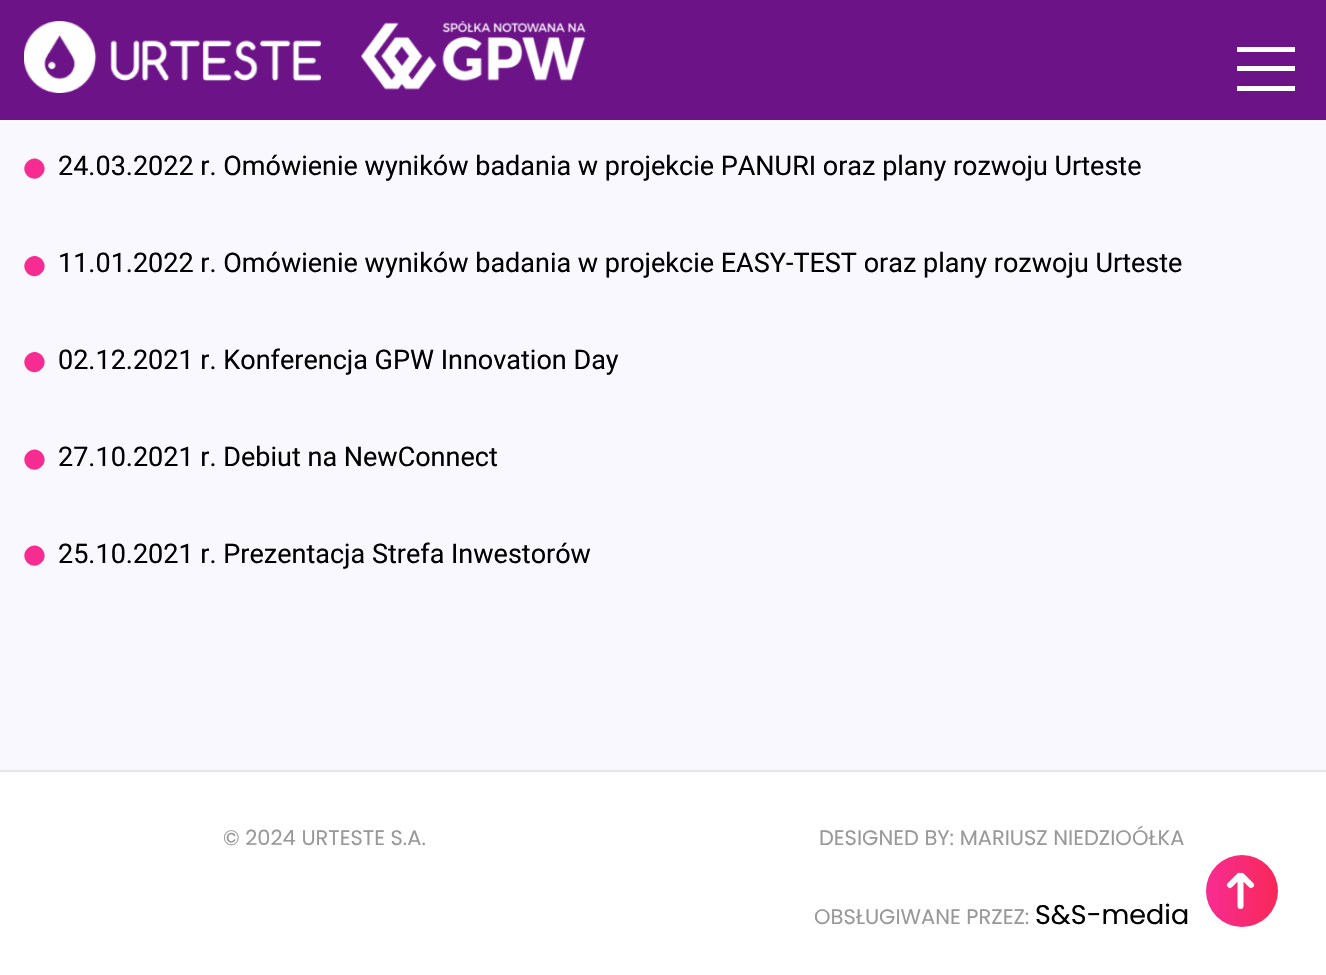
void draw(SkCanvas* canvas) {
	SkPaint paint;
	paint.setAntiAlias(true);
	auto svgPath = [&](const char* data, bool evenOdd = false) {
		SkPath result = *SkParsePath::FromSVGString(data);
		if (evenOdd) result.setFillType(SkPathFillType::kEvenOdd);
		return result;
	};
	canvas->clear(0xffffffff);
	paint.setColor(0xff6d1388);
	canvas->drawRect(SkRect::MakeXYWH(0, 0, 1326, 120), paint);
	canvas->drawImageRect(SkImages::DeferredFromEncodedData(SkData::MakeFromFileName("img1.png")), SkRect::MakeXYWH(24, 21, 297, 72), SkSamplingOptions());
	canvas->drawImageRect(SkImages::DeferredFromEncodedData(SkData::MakeFromFileName("img2.png")), SkRect::MakeXYWH(361, 21, 225, 69), SkSamplingOptions());
	paint.setColor(0xffffffff);
	canvas->drawRect(SkRect::MakeXYWH(1237, 47, 58, 5), paint);
	canvas->drawRect(SkRect::MakeXYWH(1237, 66, 58, 5), paint);
	canvas->drawRect(SkRect::MakeXYWH(1237, 86, 58, 5), paint);
	paint.setColor(0xfffaf8ff);
	canvas->drawRect(SkRect::MakeXYWH(0, 120, 1326, 650), paint);
	paint.setColor(0xfff72c92);
	canvas->drawPath(svgPath("M27.5 161.5C37 152 51 166.5 41.5 175.5C32 185 18 171 27.5 161.5Z"), paint);
	SkFont f1(fontMgr->matchFamilyStyle("Roboto", SkFontStyle::Normal()), 27);
	f1.setSubpixel(true);
	paint.setColor(0xff000000);
	canvas->drawString("24.03.2022 r. Omówienie wyników badania w projekcie PANURI oraz plany rozwoju Urteste", 58, 175, f1, paint);
	paint.setColor(0xfff72c92);
	canvas->drawPath(svgPath("M27.5 259C37 249.5 51 264 41.5 273C32 282.5 18 268.5 27.5 259Z"), paint);
	paint.setColor(0xff000000);
	canvas->drawString("11.01.2022 r. Omówienie wyników badania w projekcie EASY-TEST oraz plany rozwoju Urteste", 58, 272, f1, paint);
	paint.setColor(0xfff72c92);
	canvas->drawPath(svgPath("M27.5 355C37 345.5 51 360 41.5 369C32 378.5 18 364.5 27.5 355Z"), paint);
	paint.setColor(0xff000000);
	canvas->drawString("02.12.2021 r. Konferencja GPW Innovation Day", 58, 369, f1, paint);
	paint.setColor(0xfff72c92);
	canvas->drawPath(svgPath("M27.5 452.5C37 443 51 457.5 41.5 466.5C32 476 18 462 27.5 452.5Z"), paint);
	paint.setColor(0xff000000);
	canvas->drawString("27.10.2021 r. Debiut na NewConnect", 58, 466, f1, paint);
	paint.setColor(0xfff72c92);
	canvas->drawPath(svgPath("M27.5 548.5C37 539 51 553.5 41.5 562.5C32 572 18 558 27.5 548.5Z"), paint);
	paint.setColor(0xff000000);
	canvas->drawString("25.10.2021 r. Prezentacja Strefa Inwestorów", 58, 563, f1, paint);
	paint.setColor(0xffe6e6e6);
	canvas->drawRect(SkRect::MakeXYWH(0, 770, 1326, 2), paint);
	SkFont f2(fontMgr->matchFamilyStyle("Poppins", SkFontStyle::Normal()), 21);
	f2.setSubpixel(true);
	paint.setColor(0xff999999);
	canvas->drawString("© 2024 URTESTE S.A.", 223, 845, f2, paint);
	canvas->drawString("DESIGNED BY: MARIUSZ NIEDZIOÓŁKA", 819, 845, f2, paint);
	canvas->drawString("OBSŁUGIWANE PRZEZ:", 814, 924, f2, paint);
	SkFont f3(fontMgr->matchFamilyStyle("Poppins", SkFontStyle::Normal()), 27);
	f3.setSubpixel(true);
	paint.setColor(0xff000000);
	canvas->drawString("S&S-media", 1035, 924, f3, paint);
	{
		const SkColor colors[] = {0xfff72c92, 0xfff82858};
		const float stops[] = {0, 1};
		const SkPoint ends[] = {{1206, 891}, {1278, 891}};
		paint.setShader(SkGradientShader::MakeLinear(ends, colors, stops, 2, SkTileMode::kClamp));
		paint.setAlpha(255);
	}
	canvas->drawCircle(1242, 891, 36, paint);
	paint.setStroke(true);
	paint.setStrokeWidth(6);
	paint.setStrokeCap(SkPaint::kRound_Cap);
	paint.setStrokeJoin(SkPaint::kRound_Join);
	paint.setShader(nullptr);
	paint.setColor(0xffffffff);
	canvas->drawPath(svgPath("M1240.5 906V876M1230 885L1239 876M1251 885L1242 876"), paint);
}
